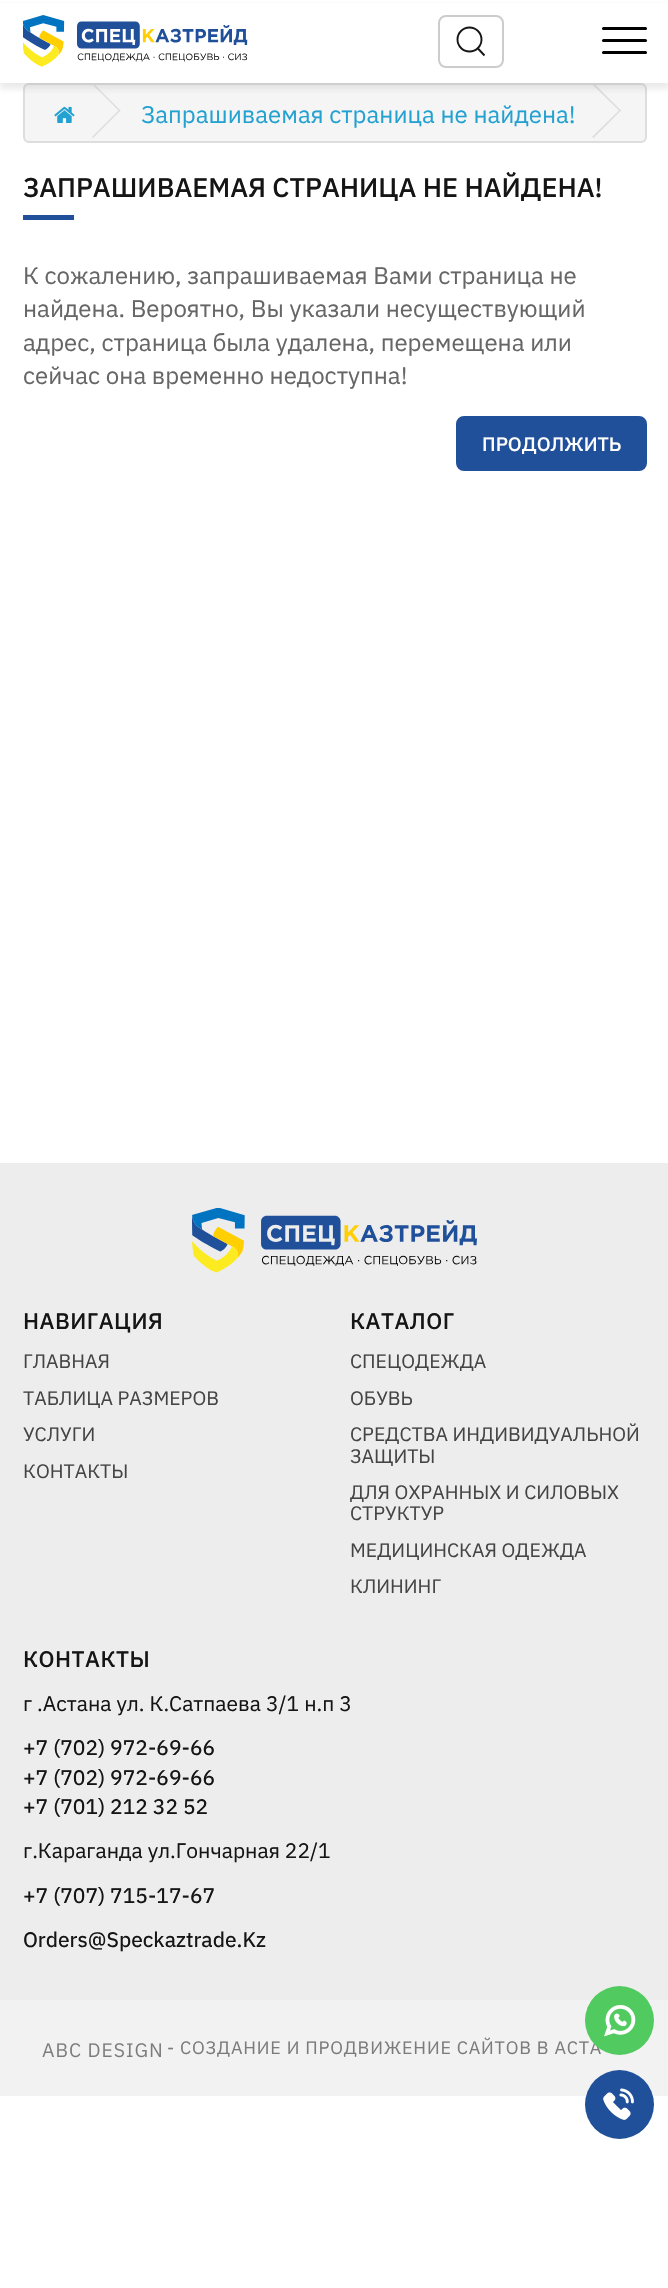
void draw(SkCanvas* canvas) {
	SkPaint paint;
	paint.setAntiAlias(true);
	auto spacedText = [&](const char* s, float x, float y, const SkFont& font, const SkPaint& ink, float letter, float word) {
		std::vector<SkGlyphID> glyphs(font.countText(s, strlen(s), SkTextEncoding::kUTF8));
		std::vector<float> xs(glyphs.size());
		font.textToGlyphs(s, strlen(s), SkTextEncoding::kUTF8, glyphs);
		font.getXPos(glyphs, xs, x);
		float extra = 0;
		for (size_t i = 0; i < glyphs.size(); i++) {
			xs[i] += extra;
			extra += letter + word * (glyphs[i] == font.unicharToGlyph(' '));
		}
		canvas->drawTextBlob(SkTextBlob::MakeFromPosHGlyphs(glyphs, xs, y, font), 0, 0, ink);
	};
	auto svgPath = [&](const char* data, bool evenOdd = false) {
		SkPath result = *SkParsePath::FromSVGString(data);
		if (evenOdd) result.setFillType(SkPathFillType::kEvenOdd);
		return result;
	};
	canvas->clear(0xffffffff);
	paint.setColor(0xfff5f5f5);
	canvas->drawRoundRect(SkRect::MakeXYWH(24, 84, 622, 58), 5, 5, paint);
	paint.setStroke(true);
	paint.setStrokeWidth(2);
	paint.setColor(0xffdddddd);
	canvas->drawRoundRect(SkRect::MakeXYWH(24, 84, 622, 58), 5, 5, paint);
	paint.setStroke(false);
	canvas->drawPath(svgPath("M92 84L93 83L120.5 110.5L119.5 111.5Z"), paint);
	canvas->drawPath(svgPath("M592 84L593.5 83L621 110.5L620 111.5Z"), paint);
	paint.setColor(0x33989898);
	paint.setMaskFilter(SkMaskFilter::MakeBlur(kNormal_SkBlurStyle, 3));
	canvas->drawRect(SkRect::MakeXYWH(0, 6, 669, 83), paint);
	paint.setMaskFilter(nullptr);
	paint.setColor(0xffffffff);
	canvas->drawRect(SkRect::MakeXYWH(0, 3, 668, 80), paint);
	canvas->drawImageRect(SkImages::DeferredFromEncodedData(SkData::MakeFromFileName("img1.png")), SkRect::MakeXYWH(23, 15, 225, 52), SkSamplingOptions());
	paint.setStroke(true);
	paint.setColor(0xffcccccc);
	canvas->drawRoundRect(SkRect::MakeXYWH(439, 16, 64, 51), 7, 7, paint);
	paint.setStrokeWidth(1.9);
	paint.setColor(0xff151515);
	canvas->drawPath(svgPath("M484.5 55.5L477.5 48"), paint);
	canvas->drawCircle(469.5, 39.5, 12, paint);
	paint.setStroke(false);
	paint.setColor(0xff000000);
	canvas->drawRoundRect(SkRect::MakeXYWH(602, 39, 45, 3), 1.5, 1.5, paint);
	canvas->drawRoundRect(SkRect::MakeXYWH(602, 27, 45, 3), 1.5, 1.5, paint);
	canvas->drawRoundRect(SkRect::MakeXYWH(602, 51, 45, 3), 1.5, 1.5, paint);
	canvas->drawImageRect(SkImages::DeferredFromEncodedData(SkData::MakeFromFileName("img2.png")), SkRect::MakeXYWH(54, 106, 21, 17), SkSamplingOptions());
	paint.setColor(0xffdddddd);
	canvas->drawPath(svgPath("M92 137L119.5 109.5L120.5 110.5L93 138Z"), paint);
	SkFont f1(fontMgr->matchFamilyStyle("IBM Plex Sans", SkFontStyle::Normal()), 24);
	f1.setSubpixel(true);
	paint.setColor(0xff23a1d1);
	canvas->drawString("Запрашиваемая страница не найдена!", 141, 123, f1, paint);
	paint.setColor(0xffdddddd);
	canvas->drawPath(svgPath("M592 137L620 109.5L621 110.5L593.5 138Z"), paint);
	SkFont f2(fontMgr->matchFamilyStyle("IBM Plex Sans", SkFontStyle(500, SkFontStyle::kNormal_Width, SkFontStyle::kUpright_Slant)), 27);
	f2.setSubpixel(true);
	paint.setColor(0xff151515);
	canvas->drawString("ЗАПРАШИВАЕМАЯ СТРАНИЦА НЕ НАЙДЕНА!", 23, 197, f2, paint);
	paint.setColor(0xff205099);
	canvas->drawRect(SkRect::MakeXYWH(23, 215, 51, 5), paint);
	paint.setColor(0xff666666);
	canvas->drawString("К сожалению, запрашиваемая Вами страница не", 23, 284, f1, paint);
	canvas->drawString("найдена. Вероятно, Вы указали несуществующий", 23, 317, f1, paint);
	canvas->drawString("адрес, страница была удалена, перемещена или", 23, 351, f1, paint);
	canvas->drawString("сейчас она временно недоступна!", 23, 384, f1, paint);
	paint.setColor(0xff205099);
	canvas->drawRoundRect(SkRect::MakeXYWH(457.5, 417.5, 188, 52), 6.5, 6.5, paint);
	paint.setStroke(true);
	paint.setStrokeWidth(3);
	canvas->drawRoundRect(SkRect::MakeXYWH(457.5, 417.5, 188, 52), 6.5, 6.5, paint);
	SkFont f3(fontMgr->matchFamilyStyle("IBM Plex Sans", SkFontStyle(500, SkFontStyle::kNormal_Width, SkFontStyle::kUpright_Slant)), 19.5);
	f3.setSubpixel(true);
	paint.setStroke(false);
	paint.setColor(0xffffffff);
	canvas->drawString("ПРОДОЛЖИТЬ", 482, 451, f3, paint);
	paint.setColor(0xffededed);
	canvas->drawRect(SkRect::MakeXYWH(0, 1163, 668, 837), paint);
	canvas->drawImageRect(SkImages::DeferredFromEncodedData(SkData::MakeFromFileName("img3.png")), SkRect::MakeXYWH(192, 1208, 285, 65), SkSamplingOptions());
	SkFont f4(fontMgr->matchFamilyStyle("IBM Plex Sans", SkFontStyle(500, SkFontStyle::kNormal_Width, SkFontStyle::kUpright_Slant)), 22.5);
	f4.setSubpixel(true);
	paint.setColor(0xff151515);
	spacedText("НАВИГАЦИЯ", 23, 1329, f4, paint, 0.5, 0);
	SkFont f5(fontMgr->matchFamilyStyle("IBM Plex Sans", SkFontStyle::Normal()), 19.5);
	f5.setSubpixel(true);
	paint.setColor(0xff444444);
	canvas->drawString("ГЛАВНАЯ", 23, 1368, f5, paint);
	canvas->drawString("ТАБЛИЦА РАЗМЕРОВ", 23, 1405, f5, paint);
	canvas->drawString("УСЛУГИ", 23, 1441, f5, paint);
	canvas->drawString("КОНТАКТЫ", 23, 1478, f5, paint);
	paint.setColor(0xff151515);
	spacedText("КАТАЛОГ", 350, 1329, f4, paint, 0.5, 0);
	paint.setColor(0xff444444);
	canvas->drawString("СПЕЦОДЕЖДА", 350, 1368, f5, paint);
	canvas->drawString("ОБУВЬ", 350, 1405, f5, paint);
	canvas->drawString("СРЕДСТВА ИНДИВИДУАЛЬНОЙ", 350, 1441, f5, paint);
	canvas->drawString("ЗАЩИТЫ", 350, 1463, f5, paint);
	canvas->drawString("ДЛЯ ОХРАННЫХ И СИЛОВЫХ", 350, 1499, f5, paint);
	canvas->drawString("СТРУКТУР", 350, 1520, f5, paint);
	canvas->drawString("МЕДИЦИНСКАЯ ОДЕЖДА", 350, 1557, f5, paint);
	canvas->drawString("КЛИНИНГ", 350, 1593, f5, paint);
	paint.setColor(0xff151515);
	spacedText("КОНТАКТЫ", 23, 1667, f4, paint, 0.5, 0);
	SkFont f6(fontMgr->matchFamilyStyle("IBM Plex Sans", SkFontStyle::Normal()), 21);
	f6.setSubpixel(true);
	canvas->drawString("г .Астана ул. К.Сатпаева 3/1 н.п 3", 23, 1711, f6, paint);
	SkFont f7(fontMgr->matchFamilyStyle("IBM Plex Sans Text", SkFontStyle(500, SkFontStyle::kNormal_Width, SkFontStyle::kUpright_Slant)), 21);
	f7.setSubpixel(true);
	canvas->drawString("+7 (702) 972-69-66", 23, 1755, f7, paint);
	canvas->drawString("+7 (702) 972-69-66", 23, 1785, f7, paint);
	canvas->drawString("+7 (701) 212 32 52", 23, 1814, f7, paint);
	canvas->drawString("г.Караганда ул.Гончарная 22/1", 23, 1858, f6, paint);
	canvas->drawString("+7 (707) 715-17-67", 23, 1903, f7, paint);
	canvas->drawString("Orders@Speckaztrade.Kz", 23, 1947, f7, paint);
	paint.setColor(0xfff2f2f2);
	canvas->drawRect(SkRect::MakeXYWH(0, 2000, 668, 96), paint);
	canvas->drawImageRect(SkImages::DeferredFromEncodedData(SkData::MakeFromFileName("img4.png")), SkRect::MakeXYWH(42, 2043, 119, 15), SkSamplingOptions());
	SkFont f8(fontMgr->matchFamilyStyle("IBM Plex Sans", SkFontStyle::Normal()), 18);
	f8.setSubpixel(true);
	paint.setColor(0xff7b7b7b);
	spacedText("- СОЗДАНИЕ И ПРОДВИЖЕНИЕ САЙТОВ В АСТА", 167, 2054, f8, paint, 0.8, 0);
	paint.setColor(0xff51cb5f);
	canvas->drawCircle(619.5, 2020.5, 34.5, paint);
	canvas->drawImageRect(SkImages::DeferredFromEncodedData(SkData::MakeFromFileName("img5.png")), SkRect::MakeXYWH(604, 2004, 32, 33), SkSamplingOptions());
	paint.setColor(0xff205099);
	canvas->drawCircle(619.5, 2104.5, 34.5, paint);
	canvas->drawImageRect(SkImages::DeferredFromEncodedData(SkData::MakeFromFileName("img6.png")), SkRect::MakeXYWH(603, 2088, 31, 32), SkSamplingOptions());
}
